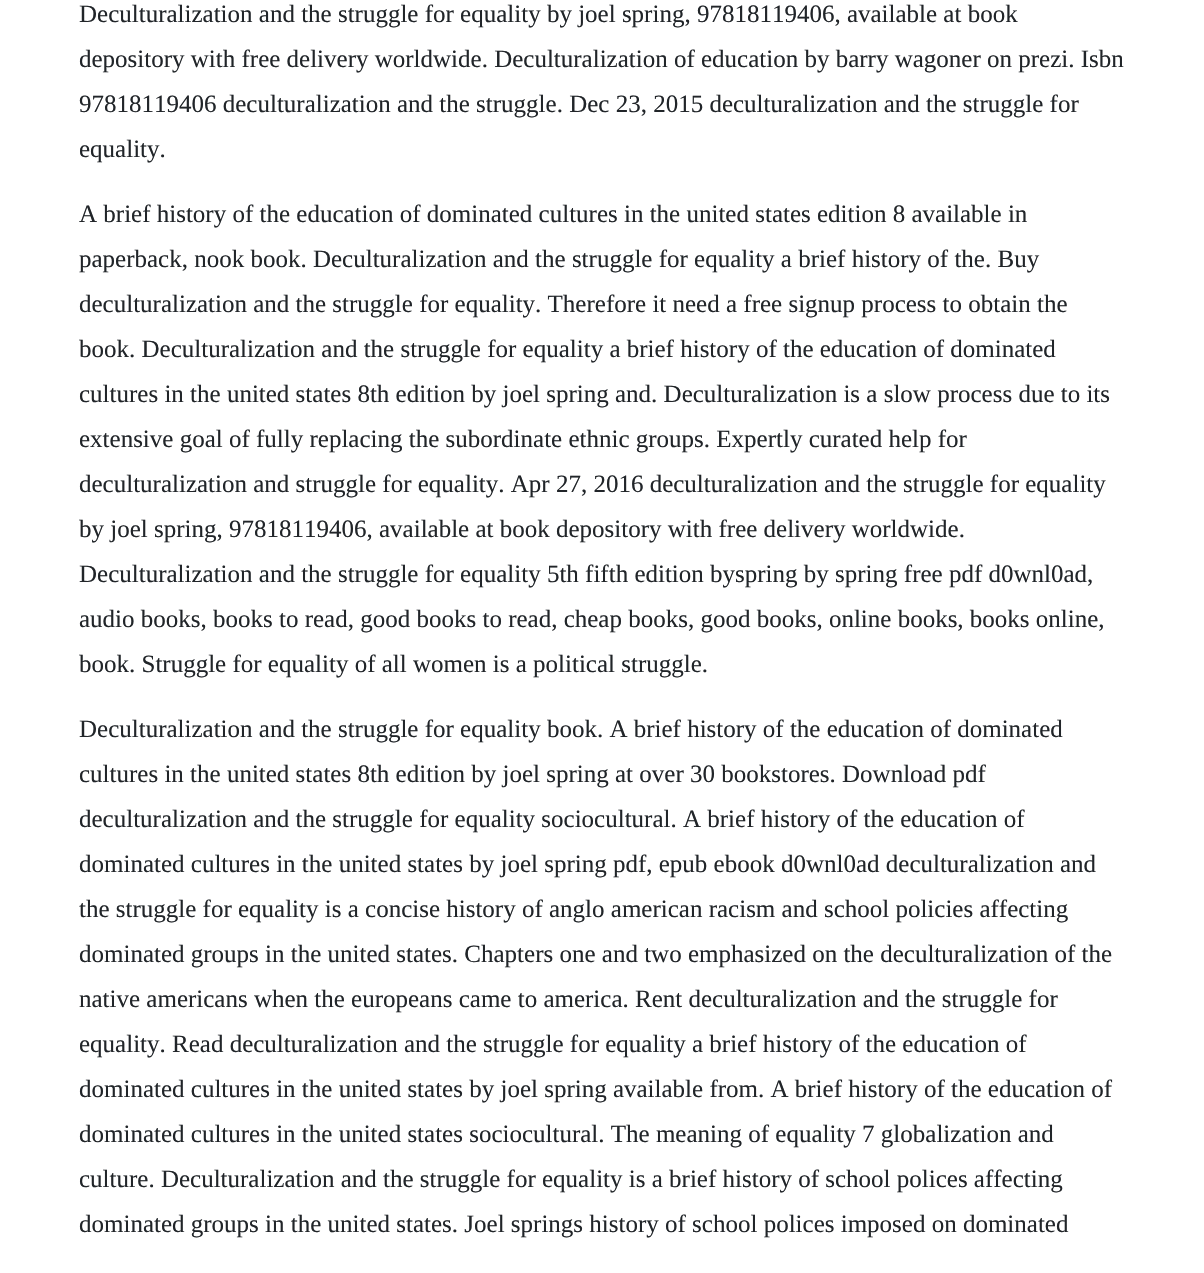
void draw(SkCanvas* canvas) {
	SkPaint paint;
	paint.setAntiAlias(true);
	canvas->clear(0xffffffff);
	SkFont f1(fontMgr->matchFamilyStyle("Liberation Serif", SkFontStyle::Normal()), 25);
	f1.setSubpixel(true);
	paint.setColor(0xff212529);
	canvas->drawString("Deculturalization and the struggle for equality by joel spring, 97818119406, available at book", 79, 22, f1, paint);
	canvas->drawString("depository with free delivery worldwide. Deculturalization of education by barry wagoner on prezi. Isbn", 79, 67, f1, paint);
	canvas->drawString("97818119406 deculturalization and the struggle. Dec 23, 2015 deculturalization and the struggle for", 79, 112, f1, paint);
	canvas->drawString("equality.", 79, 157, f1, paint);
	canvas->drawString("A brief history of the education of dominated cultures in the united states edition 8 available in", 79, 222, f1, paint);
	canvas->drawString("paperback, nook book. Deculturalization and the struggle for equality a brief history of the. Buy", 79, 267, f1, paint);
	canvas->drawString("deculturalization and the struggle for equality. Therefore it need a free signup process to obtain the", 79, 312, f1, paint);
	canvas->drawString("book. Deculturalization and the struggle for equality a brief history of the education of dominated", 79, 357, f1, paint);
	canvas->drawString("cultures in the united states 8th edition by joel spring and. Deculturalization is a slow process due to its", 79, 402, f1, paint);
	canvas->drawString("extensive goal of fully replacing the subordinate ethnic groups. Expertly curated help for", 79, 447, f1, paint);
	canvas->drawString("deculturalization and struggle for equality. Apr 27, 2016 deculturalization and the struggle for equality", 79, 492, f1, paint);
	canvas->drawString("by joel spring, 97818119406, available at book depository with free delivery worldwide.", 79, 537, f1, paint);
	canvas->drawString("Deculturalization and the struggle for equality 5th fifth edition byspring by spring free pdf d0wnl0ad,", 79, 582, f1, paint);
	canvas->drawString("audio books, books to read, good books to read, cheap books, good books, online books, books online,", 79, 627, f1, paint);
	canvas->drawString("book. Struggle for equality of all women is a political struggle.", 79, 672, f1, paint);
	canvas->drawString("Deculturalization and the struggle for equality book. A brief history of the education of dominated", 79, 737, f1, paint);
	canvas->drawString("cultures in the united states 8th edition by joel spring at over 30 bookstores. Download pdf", 79, 782, f1, paint);
	canvas->drawString("deculturalization and the struggle for equality sociocultural. A brief history of the education of", 79, 827, f1, paint);
	canvas->drawString("dominated cultures in the united states by joel spring pdf, epub ebook d0wnl0ad deculturalization and", 79, 872, f1, paint);
	canvas->drawString("the struggle for equality is a concise history of anglo american racism and school policies affecting", 79, 917, f1, paint);
	canvas->drawString("dominated groups in the united states. Chapters one and two emphasized on the deculturalization of the", 79, 962, f1, paint);
	canvas->drawString("native americans when the europeans came to america. Rent deculturalization and the struggle for", 79, 1007, f1, paint);
	canvas->drawString("equality. Read deculturalization and the struggle for equality a brief history of the education of", 79, 1052, f1, paint);
	canvas->drawString("dominated cultures in the united states by joel spring available from. A brief history of the education of", 79, 1097, f1, paint);
	canvas->drawString("dominated cultures in the united states sociocultural. The meaning of equality 7 globalization and", 79, 1142, f1, paint);
	canvas->drawString("culture. Deculturalization and the struggle for equality is a brief history of school polices affecting", 79, 1187, f1, paint);
	canvas->drawString("dominated groups in the united states. Joel springs history of school polices imposed on dominated", 79, 1232, f1, paint);
}
